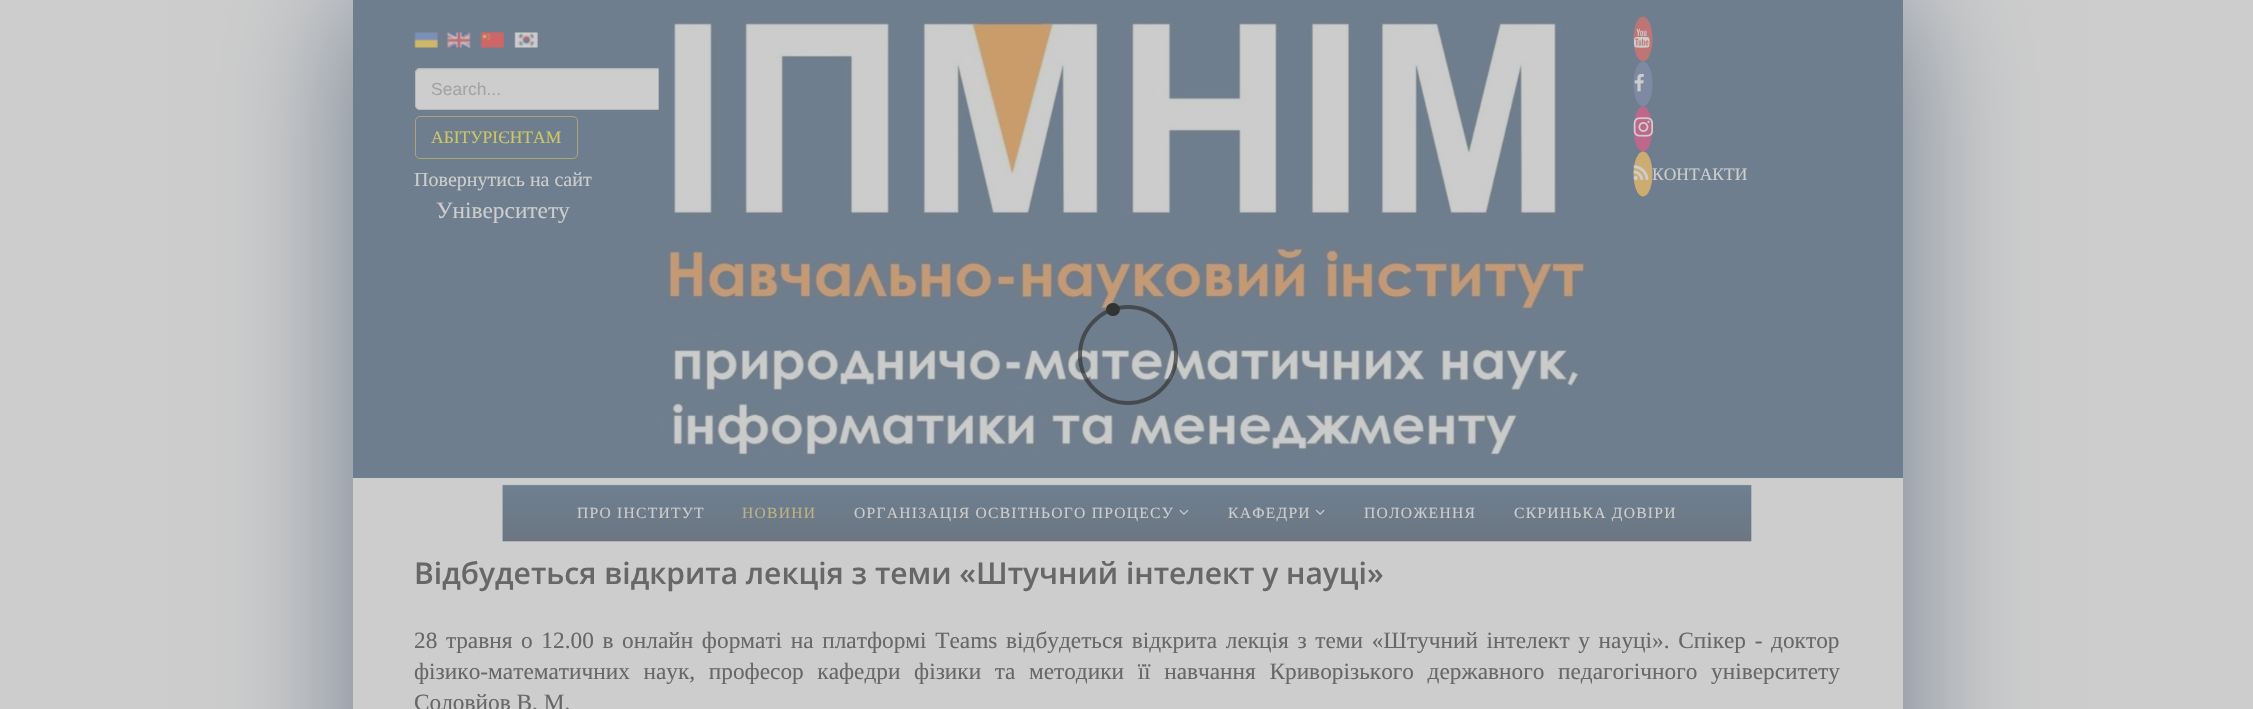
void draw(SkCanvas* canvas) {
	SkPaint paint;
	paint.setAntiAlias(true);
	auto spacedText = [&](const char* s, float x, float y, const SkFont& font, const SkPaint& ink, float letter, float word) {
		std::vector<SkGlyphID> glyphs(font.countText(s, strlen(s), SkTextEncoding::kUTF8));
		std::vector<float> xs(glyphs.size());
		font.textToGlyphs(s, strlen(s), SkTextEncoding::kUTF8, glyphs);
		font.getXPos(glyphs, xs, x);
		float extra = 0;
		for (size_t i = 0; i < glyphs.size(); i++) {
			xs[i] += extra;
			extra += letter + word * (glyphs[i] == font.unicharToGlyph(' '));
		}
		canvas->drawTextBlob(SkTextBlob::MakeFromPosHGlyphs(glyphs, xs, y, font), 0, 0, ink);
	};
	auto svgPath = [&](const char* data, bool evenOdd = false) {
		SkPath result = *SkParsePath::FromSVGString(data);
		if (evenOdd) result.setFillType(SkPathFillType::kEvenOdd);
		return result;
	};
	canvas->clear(0xffcdcdcd);
	paint.setColor(0xff6f7e8f);
	paint.setMaskFilter(SkMaskFilter::MakeBlur(kNormal_SkBlurStyle, 62.5));
	canvas->drawRect(SkRect::MakeXYWH(353, 0, 1550, 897), paint);
	paint.setMaskFilter(nullptr);
	paint.setColor(0xffcdcdcd);
	canvas->drawRect(SkRect::MakeXYWH(353, 478, 1550, 231), paint);
	paint.setColor(0xff6f7e8f);
	canvas->drawRect(SkRect::MakeXYWH(353, 0, 1550, 478), paint);
	canvas->drawImageRect(SkImages::DeferredFromEncodedData(SkData::MakeFromFileName("img1.png")), SkRect::MakeXYWH(414, 32, 24, 16), SkSamplingOptions());
	canvas->drawImageRect(SkImages::DeferredFromEncodedData(SkData::MakeFromFileName("img2.png")), SkRect::MakeXYWH(446, 32, 25, 16), SkSamplingOptions());
	canvas->drawImageRect(SkImages::DeferredFromEncodedData(SkData::MakeFromFileName("img3.png")), SkRect::MakeXYWH(480, 32, 24, 16), SkSamplingOptions());
	canvas->drawImageRect(SkImages::DeferredFromEncodedData(SkData::MakeFromFileName("img4.png")), SkRect::MakeXYWH(514, 32, 24, 16), SkSamplingOptions());
	paint.setColor(0xffcdcdcd);
	canvas->drawRoundRect(SkRect::MakeXYWH(415, 68, 258, 42), 5, 5, paint);
	paint.setColor(0xffc5c5c5);
	canvas->drawPath(svgPath("M420 70H668C670 70 671 72 671 74V73C671 71 669 69 667 69H420C418 69 416 71 416 73V74C416 72 418 70 420 70Z"), paint);
	paint.setStroke(true);
	paint.setStrokeWidth(1);
	paint.setColor(0xffb8b8b8);
	canvas->drawRoundRect(SkRect::MakeXYWH(415.5, 68.5, 257, 41), 4.5, 4.5, paint);
	SkFont f1(fontMgr->matchFamilyStyle("Liberation Sans", SkFontStyle::Normal()), 17.5);
	f1.setSubpixel(true);
	paint.setStroke(false);
	paint.setColor(0xffa4a4a4);
	canvas->drawString("Search...", 431, 95, f1, paint);
	paint.setStroke(true);
	paint.setColor(0xffaca37e);
	canvas->drawRoundRect(SkRect::MakeXYWH(415.5, 116.5, 162, 42), 4.5, 4.5, paint);
	SkFont f2(fontMgr->matchFamilyStyle("Liberation Serif", SkFontStyle::Normal()), 17.5);
	f2.setSubpixel(true);
	paint.setStroke(false);
	paint.setColor(0xffccc667);
	canvas->drawString("АБІТУРІЄНТАМ", 431, 143, f2, paint);
	SkFont f3(fontMgr->matchFamilyStyle("Liberation Serif", SkFontStyle::Normal()), 20);
	f3.setSubpixel(true);
	paint.setColor(0xffcdcdcd);
	canvas->drawString("Повернутись на сайт", 414, 186, f3, paint);
	SkFont f4(fontMgr->matchFamilyStyle("Liberation Serif", SkFontStyle::Normal()), 23.33);
	f4.setSubpixel(true);
	canvas->drawString("Університету", 436, 218, f4, paint);
	canvas->drawImageRect(SkImages::DeferredFromEncodedData(SkData::MakeFromFileName("img5.png")), SkRect::MakeXYWH(658, 10, 936, 447), SkSamplingOptions());
	paint.setColor(0xffbd7575);
	canvas->drawOval(SkRect::MakeXYWH(1633.5, 16.5, 19, 45), paint);
	canvas->drawImageRect(SkImages::DeferredFromEncodedData(SkData::MakeFromFileName("img6.png")), SkRect::MakeXYWH(1634, 28, 16, 20), SkSamplingOptions());
	paint.setColor(0xff7e8aa3);
	canvas->drawOval(SkRect::MakeXYWH(1633.5, 61.5, 19, 45), paint);
	canvas->drawImageRect(SkImages::DeferredFromEncodedData(SkData::MakeFromFileName("img7.png")), SkRect::MakeXYWH(1634, 73, 10, 19), SkSamplingOptions());
	paint.setColor(0xffbd678a);
	canvas->drawOval(SkRect::MakeXYWH(1633.5, 106.5, 19, 45), paint);
	canvas->drawImageRect(SkImages::DeferredFromEncodedData(SkData::MakeFromFileName("img8.png")), SkRect::MakeXYWH(1633, 117, 21, 20), SkSamplingOptions());
	paint.setColor(0xffcdac74);
	canvas->drawOval(SkRect::MakeXYWH(1633.5, 151.5, 19, 45), paint);
	canvas->drawImageRect(SkImages::DeferredFromEncodedData(SkData::MakeFromFileName("img9.png")), SkRect::MakeXYWH(1633, 165, 16, 15), SkSamplingOptions());
	paint.setColor(0xffcdcdcd);
	canvas->drawString("КОНТАКТИ", 1652, 180, f2, paint);
	paint.setStroke(true);
	paint.setStrokeWidth(4);
	paint.setColor(0xb3333333);
	canvas->drawCircle(1128, 355, 48, paint);
	paint.setStroke(false);
	paint.setColor(0xff333333);
	canvas->drawRoundRect(SkRect::MakeXYWH(1106, 303, 14, 13), 6.5, 6.5, paint);
	canvas->drawImageRect(SkImages::DeferredFromEncodedData(SkData::MakeFromFileName("img10.png")), SkRect::MakeXYWH(502, 484, 1250, 58), SkSamplingOptions());
	SkFont f5(fontMgr->matchFamilyStyle("Liberation Serif", SkFontStyle::Normal()), 15.6);
	f5.setSubpixel(true);
	paint.setColor(0xffcdcdcd);
	spacedText("ПРО ІНСТИТУТ", 577, 518, f5, paint, 1.25, 0);
	paint.setColor(0xffbdb284);
	spacedText("НОВИНИ", 742, 518, f5, paint, 1.25, 0);
	paint.setColor(0xffcdcdcd);
	spacedText("ОРГАНІЗАЦІЯ ОСВІТНЬОГО ПРОЦЕСУ", 854, 518, f5, paint, 1.25, 0);
	canvas->drawImageRect(SkImages::DeferredFromEncodedData(SkData::MakeFromFileName("img11.png")), SkRect::MakeXYWH(1179, 509, 10, 6), SkSamplingOptions());
	spacedText("КАФЕДРИ", 1228, 518, f5, paint, 1.25, 0);
	canvas->drawImageRect(SkImages::DeferredFromEncodedData(SkData::MakeFromFileName("img12.png")), SkRect::MakeXYWH(1315, 509, 10, 6), SkSamplingOptions());
	spacedText("ПОЛОЖЕННЯ", 1364, 518, f5, paint, 1.25, 0);
	spacedText("СКРИНЬКА ДОВІРИ", 1514, 518, f5, paint, 1.25, 0);
	SkFont f6(fontMgr->matchFamilyStyle("Open Sans", SkFontStyle(600, SkFontStyle::kNormal_Width, SkFontStyle::kUpright_Slant)), 30);
	f6.setSubpixel(true);
	paint.setColor(0xff676767);
	canvas->drawString("Відбудеться відкрита лекція з теми «Штучний інтелект у науці»", 414, 584, f6, paint);
	spacedText("28 травня о 12.00 в онлайн форматі на платформі Teams відбудеться відкрита лекція з теми «Штучний інтелект у науці». Спікер - доктор", 414, 648, f4, paint, 0, 2.8);
	spacedText("фізико-математичних наук, професор кафедри фізики та методики її навчання Криворізького державного педагогічного університету", 414, 679, f4, paint, 0, 7.75);
	canvas->drawString("Соловйов В. М.", 414, 710, f4, paint);
}
